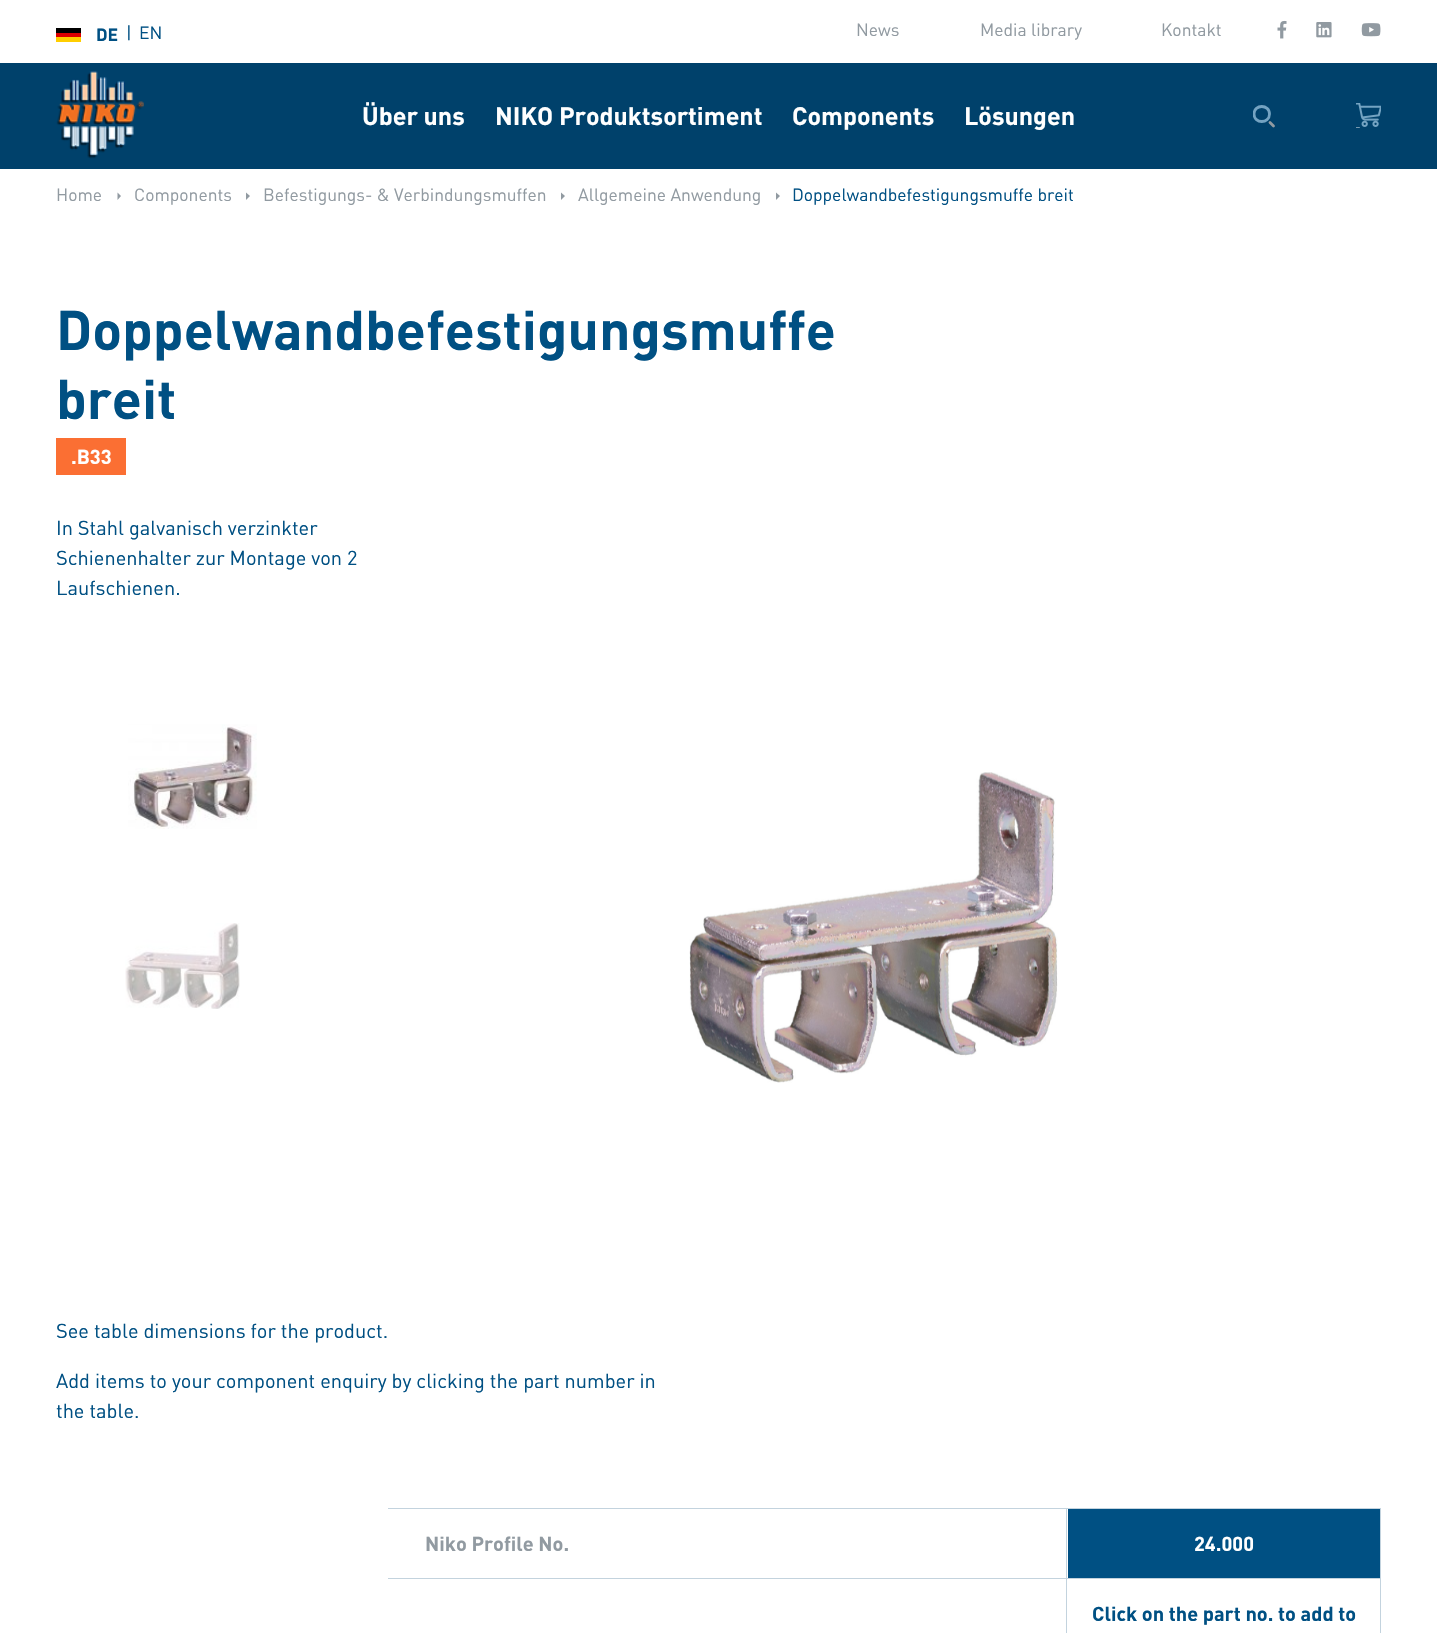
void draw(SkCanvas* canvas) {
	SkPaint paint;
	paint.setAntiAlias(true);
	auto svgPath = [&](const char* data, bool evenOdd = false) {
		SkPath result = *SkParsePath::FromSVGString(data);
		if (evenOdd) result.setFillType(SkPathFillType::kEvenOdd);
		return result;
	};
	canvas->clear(0xffffffff);
	paint.setColor(0xff000000);
	canvas->drawRect(SkRect::MakeXYWH(56, 28, 25, 5), paint);
	paint.setColor(0xffdd0000);
	canvas->drawRect(SkRect::MakeXYWH(56, 33, 25, 4), paint);
	paint.setColor(0xffffce00);
	canvas->drawRect(SkRect::MakeXYWH(56, 37, 25, 5), paint);
	SkFont f1(fontMgr->matchFamilyStyle("DIN", SkFontStyle::Bold()), 17.5);
	f1.setSubpixel(true);
	paint.setColor(0xff005083);
	canvas->drawString("DE", 96, 41, f1, paint);
	SkFont f2(fontMgr->matchFamilyStyle("DIN", SkFontStyle::Normal()), 17.5);
	f2.setSubpixel(true);
	canvas->drawString("|", 126, 39, f2, paint);
	canvas->drawString("EN", 139, 39, f2, paint);
	paint.setColor(0xff919aa1);
	canvas->drawString("News", 856, 36, f2, paint);
	canvas->drawString("Media library", 980, 36, f2, paint);
	canvas->drawString("Kontakt", 1161, 36, f2, paint);
	canvas->drawImageRect(SkImages::DeferredFromEncodedData(SkData::MakeFromFileName("img1.png")), SkRect::MakeXYWH(1277, 20, 10, 19), SkSamplingOptions());
	canvas->drawImageRect(SkImages::DeferredFromEncodedData(SkData::MakeFromFileName("img2.png")), SkRect::MakeXYWH(1316, 22, 16, 16), SkSamplingOptions());
	canvas->drawImageRect(SkImages::DeferredFromEncodedData(SkData::MakeFromFileName("img3.png")), SkRect::MakeXYWH(1361, 23, 20, 14), SkSamplingOptions());
	paint.setColor(0xff00416b);
	canvas->drawRect(SkRect::MakeXYWH(0, 63, 1437, 106), paint);
	canvas->drawImageRect(SkImages::DeferredFromEncodedData(SkData::MakeFromFileName("img4.png")), SkRect::MakeXYWH(56, 71, 88, 88), SkSamplingOptions());
	SkFont f3(fontMgr->matchFamilyStyle("DIN", SkFontStyle::Bold()), 25);
	f3.setSubpixel(true);
	paint.setColor(0xffffffff);
	canvas->drawString("Über uns", 362, 125, f3, paint);
	canvas->drawString("NIKO Produktsortiment", 495, 125, f3, paint);
	canvas->drawString("Components", 792, 125, f3, paint);
	canvas->drawString("Lösungen", 964, 125, f3, paint);
	canvas->save();
	canvas->clipRect(SkRect::MakeXYWH(1253, 105, 22, 23));
	paint.setStroke(true);
	paint.setStrokeWidth(2.8);
	paint.setStrokeCap(SkPaint::kRound_Cap);
	paint.setStrokeJoin(SkPaint::kRound_Join);
	paint.setColor(0xff74a3c2);
	canvas->drawPath(svgPath("M1269.5 114C1269.5 124 1254 124 1254 114C1254 104 1269.5 104 1269.5 114Z"), paint);
	canvas->restore();
	paint.setColor(0xff919aa1);
	canvas->drawPath(svgPath("M1273.5 126L1270 122.5"), paint);
	canvas->drawImageRect(SkImages::DeferredFromEncodedData(SkData::MakeFromFileName("img5.png")), SkRect::MakeXYWH(1356, 103, 25, 25), SkSamplingOptions());
	paint.setStroke(false);
	canvas->drawString("Home", 56, 201, f2, paint);
	canvas->drawPath(svgPath("M117.5 200V192.5L121 196Z"), paint);
	canvas->drawString("Components", 134, 201, f2, paint);
	canvas->drawPath(svgPath("M246 200V192.5L250 196Z"), paint);
	canvas->drawString("Befestigungs- & Verbindungsmuffen", 263, 201, f2, paint);
	canvas->drawPath(svgPath("M561 200V192.5L565 196Z"), paint);
	canvas->drawString("Allgemeine Anwendung", 578, 201, f2, paint);
	canvas->drawPath(svgPath("M776 200V192.5L780 196Z"), paint);
	paint.setColor(0xff005083);
	canvas->drawString("Doppelwandbefestigungsmuffe breit", 792, 201, f2, paint);
	SkFont f4(fontMgr->matchFamilyStyle("DIN", SkFontStyle::Bold()), 55);
	f4.setSubpixel(true);
	canvas->drawString("Doppelwandbefestigungsmuffe", 56, 350, f4, paint);
	canvas->drawString("breit", 56, 419, f4, paint);
	paint.setColor(0xfffb6f33);
	canvas->drawRect(SkRect::MakeXYWH(56, 438, 70, 37), paint);
	SkFont f5(fontMgr->matchFamilyStyle("DIN", SkFontStyle::Bold()), 20);
	f5.setSubpixel(true);
	paint.setColor(0xffffffff);
	canvas->drawString(".B33", 71, 464, f5, paint);
	SkFont f6(fontMgr->matchFamilyStyle("DIN", SkFontStyle::Normal()), 20);
	f6.setSubpixel(true);
	paint.setColor(0xff005083);
	canvas->drawString("In Stahl galvanisch verzinkter", 56, 535, f6, paint);
	canvas->drawString("Schienenhalter zur Montage von 2", 56, 565, f6, paint);
	canvas->drawString("Laufschienen.", 56, 595, f6, paint);
	canvas->drawImageRect(SkImages::DeferredFromEncodedData(SkData::MakeFromFileName("img6.png")), SkRect::MakeXYWH(128, 724, 129, 105), SkSamplingOptions());
	canvas->drawImageRect(SkImages::DeferredFromEncodedData(SkData::MakeFromFileName("img7.png")), SkRect::MakeXYWH(125, 923, 115, 86), SkSamplingOptions());
	canvas->drawImageRect(SkImages::DeferredFromEncodedData(SkData::MakeFromFileName("img8.png")), SkRect::MakeXYWH(689, 772, 369, 311), SkSamplingOptions());
	canvas->drawString("See table dimensions for the product.", 56, 1338, f6, paint);
	canvas->drawString("Add items to your component enquiry by clicking the part number in", 56, 1388, f6, paint);
	canvas->drawString("the table.", 56, 1418, f6, paint);
	paint.setColor(0xffc3d3de);
	canvas->drawRect(SkRect::MakeXYWH(388, 1508, 993, 1), paint);
	canvas->drawRect(SkRect::MakeXYWH(1066, 1508, 1, 70), paint);
	paint.setColor(0xff919aa1);
	canvas->drawString("Niko Profile No.", 425, 1551, f5, paint);
	paint.setColor(0xff005083);
	canvas->drawRect(SkRect::MakeXYWH(1068, 1509, 312, 69), paint);
	paint.setColor(0xffc3d3de);
	canvas->drawRect(SkRect::MakeXYWH(1380, 1508, 1, 70), paint);
	paint.setColor(0xffffffff);
	canvas->drawString("24.000", 1194, 1551, f5, paint);
	paint.setColor(0xffc3d3de);
	canvas->drawRect(SkRect::MakeXYWH(388, 1578, 993, 1), paint);
	canvas->drawRect(SkRect::MakeXYWH(1066, 1578, 1, 55), paint);
	canvas->drawRect(SkRect::MakeXYWH(1380, 1578, 1, 55), paint);
	paint.setColor(0xff005083);
	canvas->drawString("Click on the part no. to add to", 1092, 1621, f5, paint);
}
